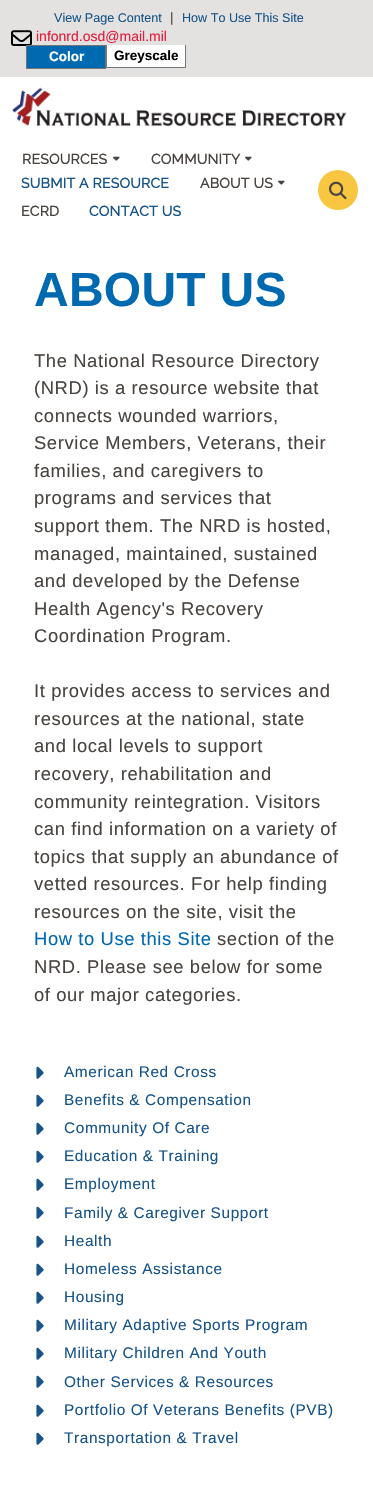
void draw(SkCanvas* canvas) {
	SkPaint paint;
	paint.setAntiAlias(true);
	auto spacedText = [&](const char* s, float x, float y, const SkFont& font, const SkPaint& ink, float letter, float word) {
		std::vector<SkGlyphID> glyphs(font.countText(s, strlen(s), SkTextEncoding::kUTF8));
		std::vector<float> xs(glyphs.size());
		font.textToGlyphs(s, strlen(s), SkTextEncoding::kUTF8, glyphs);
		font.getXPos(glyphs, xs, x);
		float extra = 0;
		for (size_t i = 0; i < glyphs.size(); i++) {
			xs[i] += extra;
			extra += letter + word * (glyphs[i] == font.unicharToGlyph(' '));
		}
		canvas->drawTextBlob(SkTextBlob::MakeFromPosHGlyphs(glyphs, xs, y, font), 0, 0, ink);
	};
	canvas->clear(0xffffffff);
	paint.setColor(0xffe4e2e0);
	canvas->drawRect(SkRect::MakeXYWH(0, 0, 373, 77), paint);
	SkFont f1(fontMgr->matchFamilyStyle("Liberation Sans", SkFontStyle::Normal()), 12.6);
	f1.setSubpixel(true);
	paint.setColor(0xff175489);
	canvas->drawString("View Page Content", 54, 22, f1, paint);
	SkFont f2(fontMgr->matchFamilyStyle("Liberation Sans", SkFontStyle::Normal()), 13.5);
	f2.setSubpixel(true);
	paint.setColor(0xff494440);
	canvas->drawString("|", 170, 22, f2, paint);
	paint.setColor(0xff175489);
	canvas->drawString("How To Use This Site", 182, 22, f1, paint);
	canvas->drawImageRect(SkImages::DeferredFromEncodedData(SkData::MakeFromFileName("img1.png")), SkRect::MakeXYWH(11, 30, 21, 16), SkSamplingOptions());
	SkFont f3(fontMgr->matchFamilyStyle("Liberation Sans", SkFontStyle::Normal()), 14);
	f3.setSubpixel(true);
	paint.setColor(0xffe41d3d);
	canvas->drawString("infonrd.osd@mail.mil", 36, 41, f3, paint);
	paint.setColor(0xff006ab0);
	canvas->drawRect(SkRect::MakeXYWH(26.5, 45.5, 79, 23), paint);
	paint.setStroke(true);
	paint.setStrokeWidth(1);
	paint.setColor(0xff757575);
	canvas->drawRect(SkRect::MakeXYWH(26.5, 45.5, 79, 23), paint);
	SkFont f4(fontMgr->matchFamilyStyle("Liberation Sans", SkFontStyle::Bold()), 13.5);
	f4.setSubpixel(true);
	paint.setStroke(false);
	paint.setColor(0xffffffff);
	canvas->drawString("Color", 49, 61, f4, paint);
	canvas->drawRect(SkRect::MakeXYWH(107, 45, 78, 22), paint);
	paint.setColor(0xff757575);
	canvas->drawRect(SkRect::MakeXYWH(185, 45, 1, 23), paint);
	canvas->drawRect(SkRect::MakeXYWH(106, 67, 80, 1), paint);
	canvas->drawRect(SkRect::MakeXYWH(106, 45, 1, 23), paint);
	paint.setColor(0xff000000);
	canvas->drawString("Greyscale", 114, 60, f4, paint);
	canvas->drawImageRect(SkImages::DeferredFromEncodedData(SkData::MakeFromFileName("img2.png")), SkRect::MakeXYWH(12, 87, 335, 40), SkSamplingOptions());
	SkFont f5(fontMgr->matchFamilyStyle("Raleway", SkFontStyle::Bold()), 14);
	f5.setSubpixel(true);
	paint.setColor(0xff494440);
	spacedText("RESOURCES", 22, 164, f5, paint, 0.25, 0);
	canvas->drawImageRect(SkImages::DeferredFromEncodedData(SkData::MakeFromFileName("img3.png")), SkRect::MakeXYWH(113, 156, 7, 5), SkSamplingOptions());
	spacedText("COMMUNITY", 151, 164, f5, paint, 0.25, 0);
	canvas->drawImageRect(SkImages::DeferredFromEncodedData(SkData::MakeFromFileName("img3.png")), SkRect::MakeXYWH(245, 156, 7, 5), SkSamplingOptions());
	paint.setColor(0xff175489);
	spacedText("SUBMIT A RESOURCE", 21, 188, f5, paint, 0.25, 0);
	paint.setColor(0xff494440);
	spacedText("ABOUT US", 200, 188, f5, paint, 0.25, 0);
	canvas->drawImageRect(SkImages::DeferredFromEncodedData(SkData::MakeFromFileName("img3.png")), SkRect::MakeXYWH(278, 180, 7, 5), SkSamplingOptions());
	spacedText("ECRD", 21, 216, f5, paint, 0.25, 0);
	paint.setColor(0xff175489);
	spacedText("CONTACT US", 89, 216, f5, paint, 0.25, 0);
	paint.setColor(0xfff9c642);
	canvas->drawCircle(338, 190, 20, paint);
	canvas->drawImageRect(SkImages::DeferredFromEncodedData(SkData::MakeFromFileName("img4.png")), SkRect::MakeXYWH(329, 181, 18, 19), SkSamplingOptions());
	SkFont f6(fontMgr->matchFamilyStyle("Liberation Sans", SkFontStyle::Bold()), 48);
	f6.setSubpixel(true);
	paint.setColor(0xff006ab0);
	spacedText("ABOUT US", 34, 306, f6, paint, 0.25, 0);
	SkFont f7(fontMgr->matchFamilyStyle("Liberation Sans", SkFontStyle::Normal()), 18.4);
	f7.setSubpixel(true);
	paint.setColor(0xff494440);
	spacedText("The National Resource Directory", 34, 367, f7, paint, 0.6, 0);
	spacedText("(NRD) is a resource website that", 34, 394, f7, paint, 0.6, 0);
	spacedText("connects wounded warriors,", 34, 422, f7, paint, 0.6, 0);
	spacedText("Service Members, Veterans, their", 34, 449, f7, paint, 0.6, 0);
	spacedText("families, and caregivers to", 34, 477, f7, paint, 0.6, 0);
	spacedText("programs and services that", 34, 504, f7, paint, 0.6, 0);
	spacedText("support them. The NRD is hosted,", 34, 532, f7, paint, 0.6, 0);
	spacedText("managed, maintained, sustained", 34, 560, f7, paint, 0.6, 0);
	spacedText("and developed by the Defense", 34, 587, f7, paint, 0.6, 0);
	spacedText("Health Agency's Recovery", 34, 615, f7, paint, 0.6, 0);
	spacedText("Coordination Program.", 34, 642, f7, paint, 0.6, 0);
	spacedText("It provides access to services and", 34, 697, f7, paint, 0.6, 0);
	spacedText("resources at the national, state", 34, 725, f7, paint, 0.6, 0);
	spacedText("and local levels to support", 34, 752, f7, paint, 0.6, 0);
	spacedText("recovery, rehabilitation and", 34, 780, f7, paint, 0.6, 0);
	spacedText("community reintegration. Visitors", 34, 808, f7, paint, 0.6, 0);
	spacedText("can find information on a variety of", 34, 835, f7, paint, 0.6, 0);
	spacedText("topics that supply an abundance of", 34, 863, f7, paint, 0.6, 0);
	spacedText("vetted resources. For help finding", 34, 890, f7, paint, 0.6, 0);
	spacedText("resources on the site, visit the", 34, 918, f7, paint, 0.6, 0);
	paint.setColor(0xff006ab0);
	spacedText("How to Use this Site", 34, 945, f7, paint, 0.6, 0);
	paint.setColor(0xff494440);
	spacedText("section of the", 217, 945, f7, paint, 0.6, 0);
	spacedText("NRD. Please see below for some", 34, 973, f7, paint, 0.6, 0);
	spacedText("of our major categories.", 34, 1001, f7, paint, 0.6, 0);
	canvas->drawImageRect(SkImages::DeferredFromEncodedData(SkData::MakeFromFileName("img5.png")), SkRect::MakeXYWH(36, 1066, 8, 13), SkSamplingOptions());
	SkFont f8(fontMgr->matchFamilyStyle("Liberation Sans", SkFontStyle::Normal()), 15.4);
	f8.setSubpixel(true);
	paint.setColor(0xff175489);
	spacedText("American Red Cross", 64, 1077, f8, paint, 0.6, 0);
	canvas->drawImageRect(SkImages::DeferredFromEncodedData(SkData::MakeFromFileName("img5.png")), SkRect::MakeXYWH(36, 1094, 8, 13), SkSamplingOptions());
	spacedText("Benefits & Compensation", 64, 1105, f8, paint, 0.6, 0);
	canvas->drawImageRect(SkImages::DeferredFromEncodedData(SkData::MakeFromFileName("img5.png")), SkRect::MakeXYWH(36, 1122, 8, 13), SkSamplingOptions());
	spacedText("Community Of Care", 64, 1133, f8, paint, 0.6, 0);
	canvas->drawImageRect(SkImages::DeferredFromEncodedData(SkData::MakeFromFileName("img5.png")), SkRect::MakeXYWH(36, 1150, 8, 13), SkSamplingOptions());
	spacedText("Education & Training", 64, 1161, f8, paint, 0.6, 0);
	canvas->drawImageRect(SkImages::DeferredFromEncodedData(SkData::MakeFromFileName("img5.png")), SkRect::MakeXYWH(36, 1178, 8, 13), SkSamplingOptions());
	spacedText("Employment", 64, 1189, f8, paint, 0.6, 0);
	canvas->drawImageRect(SkImages::DeferredFromEncodedData(SkData::MakeFromFileName("img5.png")), SkRect::MakeXYWH(36, 1206, 8, 13), SkSamplingOptions());
	spacedText("Family & Caregiver Support", 64, 1218, f8, paint, 0.6, 0);
	canvas->drawImageRect(SkImages::DeferredFromEncodedData(SkData::MakeFromFileName("img5.png")), SkRect::MakeXYWH(36, 1235, 8, 13), SkSamplingOptions());
	spacedText("Health", 64, 1246, f8, paint, 0.6, 0);
	canvas->drawImageRect(SkImages::DeferredFromEncodedData(SkData::MakeFromFileName("img5.png")), SkRect::MakeXYWH(36, 1263, 8, 13), SkSamplingOptions());
	spacedText("Homeless Assistance", 64, 1274, f8, paint, 0.6, 0);
	canvas->drawImageRect(SkImages::DeferredFromEncodedData(SkData::MakeFromFileName("img5.png")), SkRect::MakeXYWH(36, 1291, 8, 13), SkSamplingOptions());
	spacedText("Housing", 64, 1302, f8, paint, 0.6, 0);
	canvas->drawImageRect(SkImages::DeferredFromEncodedData(SkData::MakeFromFileName("img5.png")), SkRect::MakeXYWH(36, 1319, 8, 13), SkSamplingOptions());
	spacedText("Military Adaptive Sports Program", 64, 1330, f8, paint, 0.6, 0);
	canvas->drawImageRect(SkImages::DeferredFromEncodedData(SkData::MakeFromFileName("img5.png")), SkRect::MakeXYWH(36, 1347, 8, 13), SkSamplingOptions());
	spacedText("Military Children And Youth", 64, 1358, f8, paint, 0.6, 0);
	canvas->drawImageRect(SkImages::DeferredFromEncodedData(SkData::MakeFromFileName("img5.png")), SkRect::MakeXYWH(36, 1375, 8, 13), SkSamplingOptions());
	spacedText("Other Services & Resources", 64, 1387, f8, paint, 0.6, 0);
	canvas->drawImageRect(SkImages::DeferredFromEncodedData(SkData::MakeFromFileName("img5.png")), SkRect::MakeXYWH(36, 1404, 8, 13), SkSamplingOptions());
	spacedText("Portfolio Of Veterans Benefits (PVB)", 64, 1415, f8, paint, 0.6, 0);
	canvas->drawImageRect(SkImages::DeferredFromEncodedData(SkData::MakeFromFileName("img5.png")), SkRect::MakeXYWH(36, 1432, 8, 13), SkSamplingOptions());
	spacedText("Transportation & Travel", 64, 1443, f8, paint, 0.6, 0);
}
